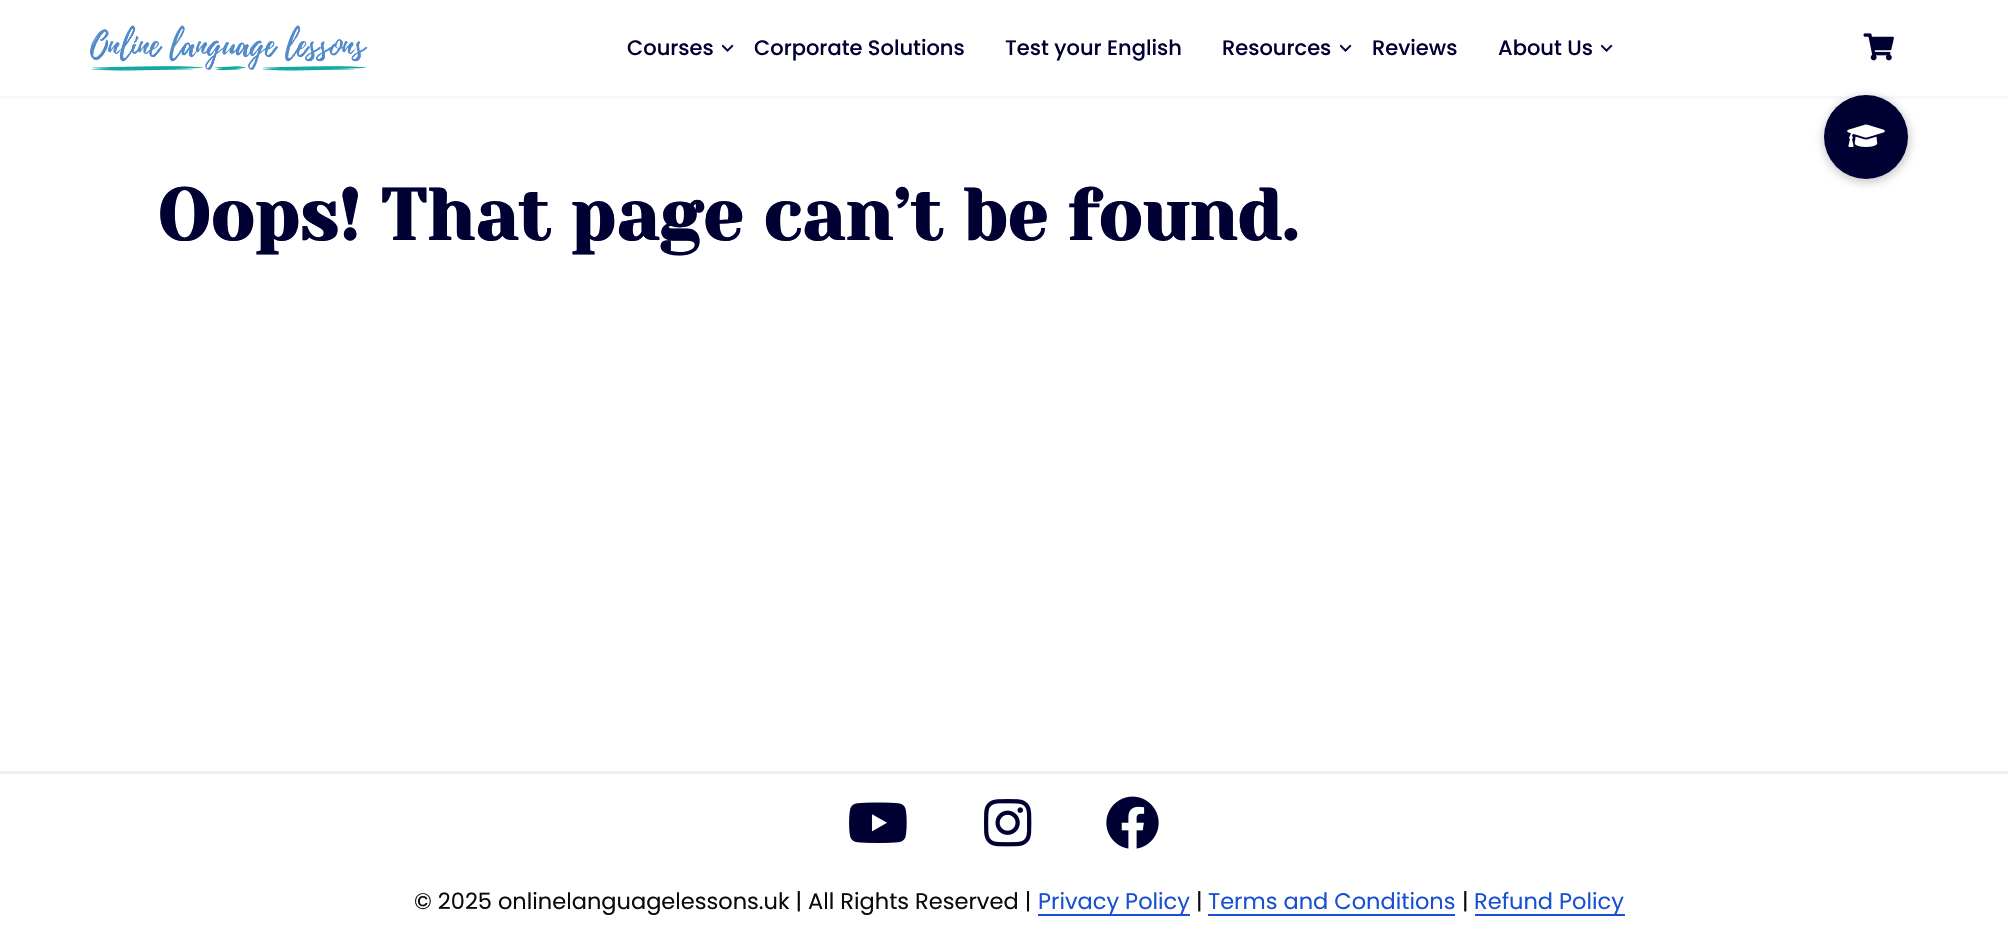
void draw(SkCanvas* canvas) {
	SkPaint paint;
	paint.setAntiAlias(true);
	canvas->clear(0xffffffff);
	paint.setColor(0xfff8f8f8);
	canvas->drawRect(SkRect::MakeXYWH(0, 96, 2008, 3), paint);
	canvas->drawImageRect(SkImages::DeferredFromEncodedData(SkData::MakeFromFileName("img1.png")), SkRect::MakeXYWH(90, 25, 278, 46), SkSamplingOptions());
	SkFont f1(fontMgr->matchFamilyStyle("Poppins", SkFontStyle(500, SkFontStyle::kNormal_Width, SkFontStyle::kUpright_Slant)), 21);
	f1.setSubpixel(true);
	paint.setColor(0xff000033);
	canvas->drawString("Courses", 627, 55, f1, paint);
	canvas->drawImageRect(SkImages::DeferredFromEncodedData(SkData::MakeFromFileName("img2.png")), SkRect::MakeXYWH(722, 44, 12, 8), SkSamplingOptions());
	canvas->drawString("Corporate Solutions", 754, 55, f1, paint);
	canvas->drawString("Test your English", 1005, 55, f1, paint);
	canvas->drawString("Resources", 1222, 55, f1, paint);
	canvas->drawImageRect(SkImages::DeferredFromEncodedData(SkData::MakeFromFileName("img2.png")), SkRect::MakeXYWH(1340, 44, 12, 8), SkSamplingOptions());
	canvas->drawString("Reviews", 1372, 55, f1, paint);
	canvas->drawString("About Us", 1498, 55, f1, paint);
	canvas->drawImageRect(SkImages::DeferredFromEncodedData(SkData::MakeFromFileName("img2.png")), SkRect::MakeXYWH(1601, 44, 12, 8), SkSamplingOptions());
	canvas->drawImageRect(SkImages::DeferredFromEncodedData(SkData::MakeFromFileName("img3.png")), SkRect::MakeXYWH(1863, 33, 31, 28), SkSamplingOptions());
	SkFont f2(fontMgr->matchFamilyStyle("Yeseva One", SkFontStyle::Bold()), 72);
	f2.setSubpixel(true);
	canvas->drawString("Oops! That page can’t be found.", 157, 240, f2, paint);
	paint.setColor(0xfff0f0f0);
	canvas->drawRect(SkRect::MakeXYWH(0, 771, 2008, 3), paint);
	canvas->drawImageRect(SkImages::DeferredFromEncodedData(SkData::MakeFromFileName("img4.png")), SkRect::MakeXYWH(849, 802, 58, 41), SkSamplingOptions());
	canvas->drawImageRect(SkImages::DeferredFromEncodedData(SkData::MakeFromFileName("img5.png")), SkRect::MakeXYWH(984, 799, 48, 48), SkSamplingOptions());
	canvas->drawImageRect(SkImages::DeferredFromEncodedData(SkData::MakeFromFileName("img6.png")), SkRect::MakeXYWH(1106, 796, 53, 53), SkSamplingOptions());
	SkFont f3(fontMgr->matchFamilyStyle("Poppins", SkFontStyle::Normal()), 22.5);
	f3.setSubpixel(true);
	paint.setColor(0xff0a0a0a);
	canvas->drawString("© 2025 onlinelanguagelessons.uk | All Rights Reserved |", 414, 909, f3, paint);
	paint.setColor(0xff1950d1);
	canvas->drawRect(SkRect::MakeXYWH(1038, 914, 152, 2), paint);
	canvas->drawString("Privacy Policy", 1038, 909, f3, paint);
	paint.setColor(0xff0a0a0a);
	canvas->drawString("|", 1196, 909, f3, paint);
	paint.setColor(0xff1950d1);
	canvas->drawString("Terms and Conditions", 1208, 909, f3, paint);
	canvas->drawRect(SkRect::MakeXYWH(1208, 914, 247, 2), paint);
	paint.setColor(0xff0a0a0a);
	canvas->drawString("|", 1462, 909, f3, paint);
	paint.setColor(0xff1950d1);
	canvas->drawRect(SkRect::MakeXYWH(1475, 914, 150, 2), paint);
	canvas->drawString("Refund Policy", 1474, 909, f3, paint);
	paint.setColor(0x33000000);
	paint.setMaskFilter(SkMaskFilter::MakeBlur(kNormal_SkBlurStyle, 4.5));
	canvas->drawRoundRect(SkRect::MakeXYWH(1823, 96, 87, 87), 43.5, 43.5, paint);
	paint.setMaskFilter(nullptr);
	paint.setColor(0xff000033);
	canvas->drawCircle(1866, 137, 42, paint);
	canvas->drawImageRect(SkImages::DeferredFromEncodedData(SkData::MakeFromFileName("img7.png")), SkRect::MakeXYWH(1847, 124, 38, 23), SkSamplingOptions());
}
